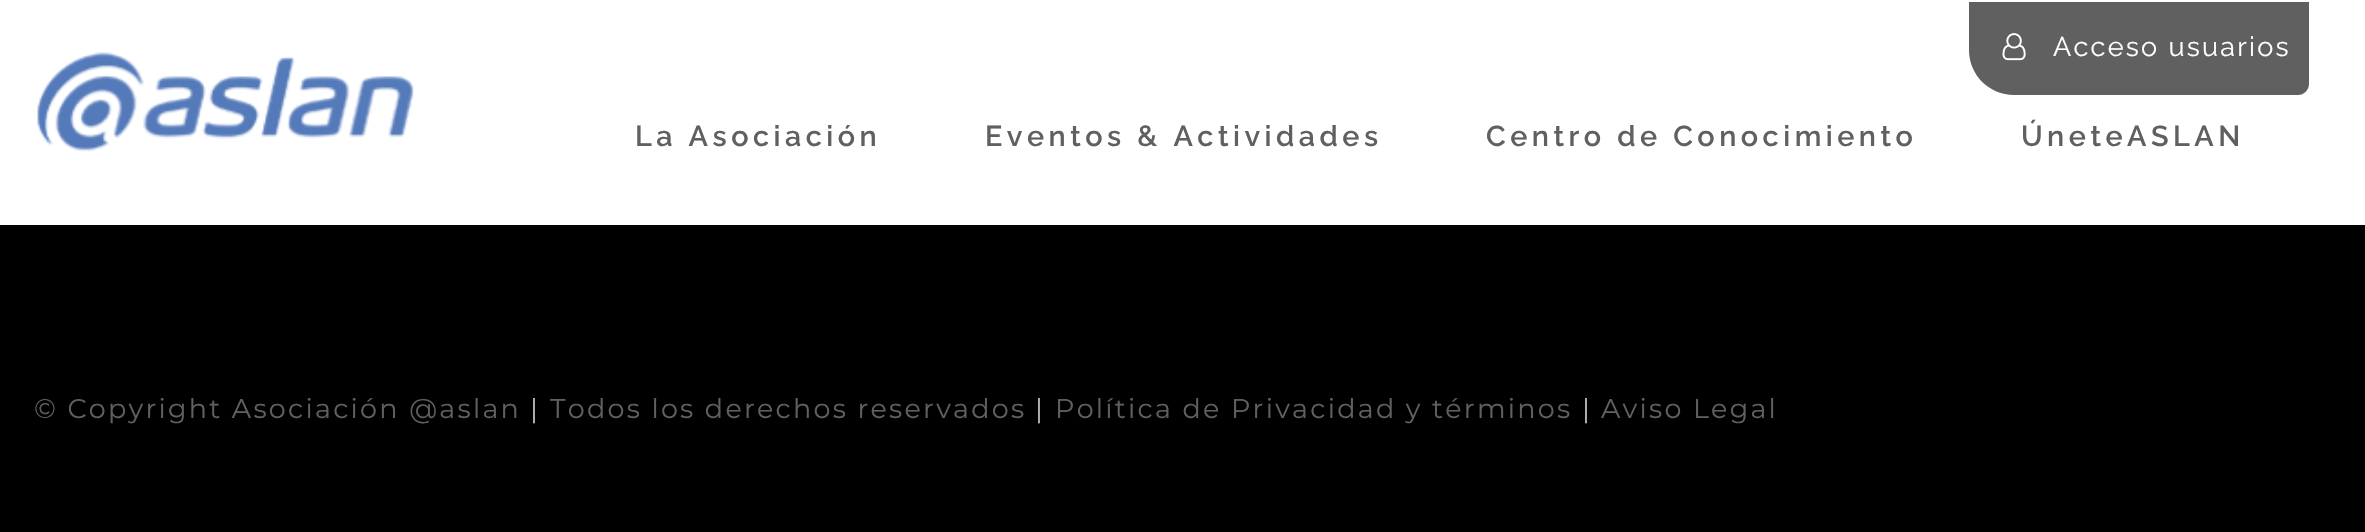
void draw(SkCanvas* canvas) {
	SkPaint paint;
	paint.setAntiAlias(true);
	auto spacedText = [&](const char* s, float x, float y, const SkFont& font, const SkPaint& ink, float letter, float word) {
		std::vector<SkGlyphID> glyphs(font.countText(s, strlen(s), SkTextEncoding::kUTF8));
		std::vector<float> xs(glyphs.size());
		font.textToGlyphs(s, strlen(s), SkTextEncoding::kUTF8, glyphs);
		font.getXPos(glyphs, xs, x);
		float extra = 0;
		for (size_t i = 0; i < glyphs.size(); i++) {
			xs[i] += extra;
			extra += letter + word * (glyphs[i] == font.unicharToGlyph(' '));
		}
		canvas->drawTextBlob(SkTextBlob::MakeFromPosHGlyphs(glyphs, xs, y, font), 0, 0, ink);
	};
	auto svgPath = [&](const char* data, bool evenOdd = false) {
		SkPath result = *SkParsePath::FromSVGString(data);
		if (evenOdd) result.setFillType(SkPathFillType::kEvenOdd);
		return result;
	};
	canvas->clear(0xff000000);
	paint.setColor(0xffffffff);
	canvas->drawRect(SkRect::MakeXYWH(0, 0, 2365, 225), paint);
	paint.setColor(0xff606060);
	canvas->drawPath(svgPath("M1969 2H2309V84C2309 90 2304 95 2298 95H2014C1989 95 1969 75 1969 50Z"), paint);
	canvas->drawImageRect(SkImages::DeferredFromEncodedData(SkData::MakeFromFileName("img1.png")), SkRect::MakeXYWH(2002, 33, 24, 28), SkSamplingOptions());
	SkFont f1(fontMgr->matchFamilyStyle("Raleway", SkFontStyle::Normal()), 27);
	f1.setSubpixel(true);
	paint.setColor(0xffffffff);
	spacedText("Acceso usuarios", 2053, 56, f1, paint, 2.25, 0);
	canvas->drawImageRect(SkImages::DeferredFromEncodedData(SkData::MakeFromFileName("img2.png")), SkRect::MakeXYWH(37, 52, 377, 100), SkSamplingOptions());
	SkFont f2(fontMgr->matchFamilyStyle("Raleway", SkFontStyle(600, SkFontStyle::kNormal_Width, SkFontStyle::kUpright_Slant)), 28.75);
	f2.setSubpixel(true);
	paint.setColor(0xff606060);
	spacedText("La Asociación", 635, 146, f2, paint, 4.5, 0);
	spacedText("Eventos & Actividades", 985, 146, f2, paint, 4.5, 0);
	spacedText("Centro de Conocimiento", 1486, 146, f2, paint, 4.5, 0);
	spacedText("ÚneteASLAN", 2021, 146, f2, paint, 4.5, 0);
	SkFont f3(fontMgr->matchFamilyStyle("Montserrat", SkFontStyle::Normal()), 27);
	f3.setSubpixel(true);
	spacedText("© Copyright Asociación @aslan", 34, 418, f3, paint, 2.25, 0);
	paint.setColor(0xffbababa);
	spacedText("|", 530, 418, f3, paint, 2.25, 0);
	paint.setColor(0xff606060);
	spacedText("Todos los derechos reservados", 550, 418, f3, paint, 2.25, 0);
	paint.setColor(0xffbababa);
	spacedText("|", 1035, 418, f3, paint, 2.25, 0);
	paint.setColor(0xff606060);
	spacedText("Política de Privacidad y términos", 1055, 418, f3, paint, 2.25, 0);
	paint.setColor(0xffbababa);
	spacedText("|", 1582, 418, f3, paint, 2.25, 0);
	paint.setColor(0xff606060);
	spacedText("Aviso Legal", 1601, 418, f3, paint, 2.25, 0);
}
